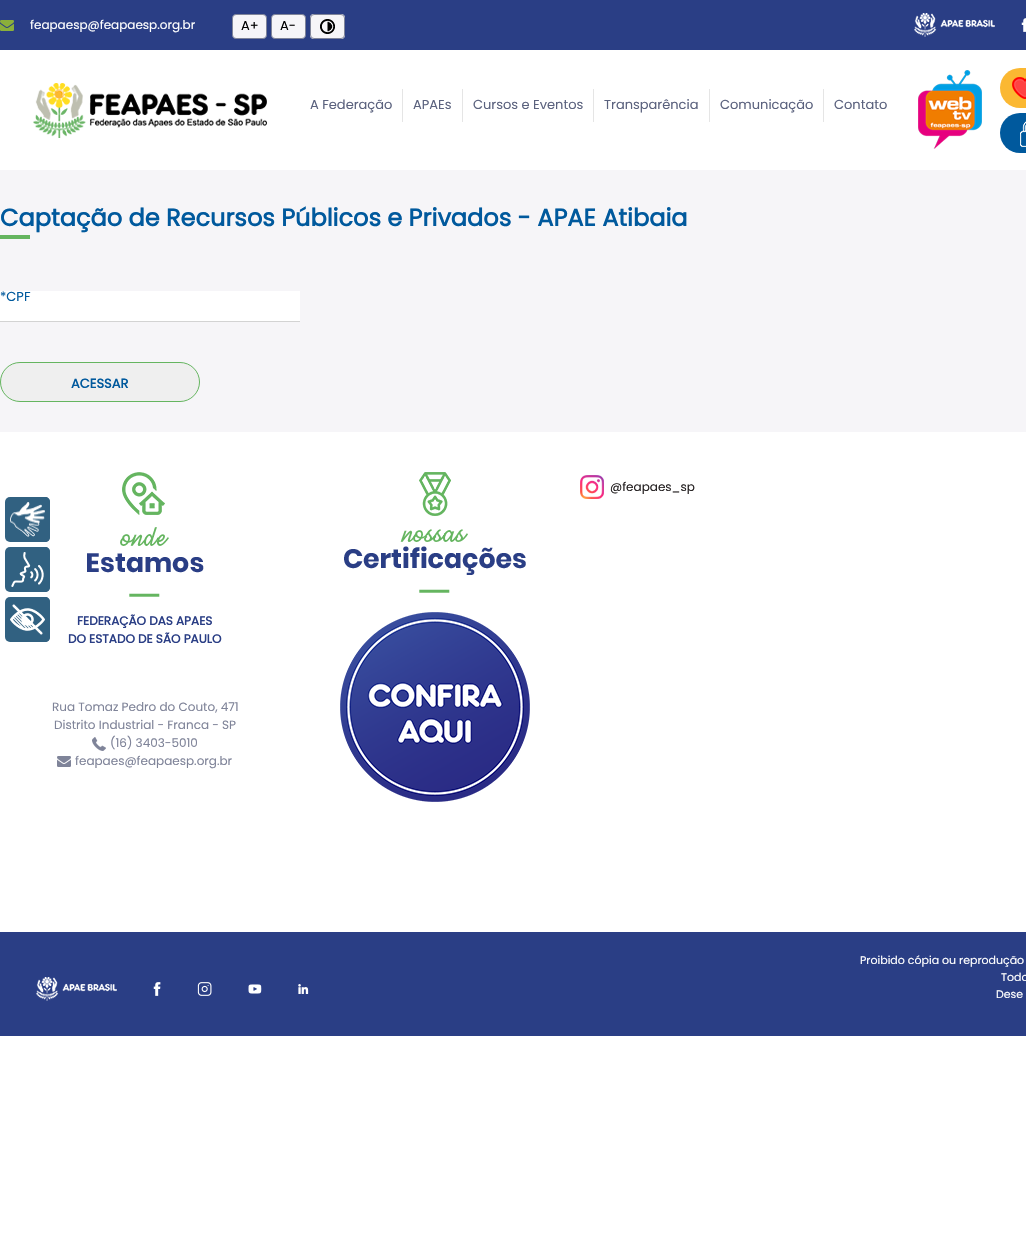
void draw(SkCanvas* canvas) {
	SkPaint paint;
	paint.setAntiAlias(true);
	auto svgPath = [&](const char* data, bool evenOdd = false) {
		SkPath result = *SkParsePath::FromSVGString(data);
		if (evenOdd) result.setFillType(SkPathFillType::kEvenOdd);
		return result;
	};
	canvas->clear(0xffffffff);
	paint.setColor(0xff2a3e85);
	canvas->drawRect(SkRect::MakeXYWH(0, 0, 1026, 50), paint);
	canvas->drawImageRect(SkImages::DeferredFromEncodedData(SkData::MakeFromFileName("img1.png")), SkRect::MakeXYWH(0, 20, 14, 11), SkSamplingOptions());
	SkFont f1(fontMgr->matchFamilyStyle("Poppins", SkFontStyle::Normal()), 12);
	f1.setSubpixel(true);
	paint.setColor(0xffffffff);
	canvas->drawString("feapaesp@feapaesp.org.br", 30, 29, f1, paint);
	paint.setColor(0xfff6f5f8);
	canvas->drawRoundRect(SkRect::MakeXYWH(232.5, 14.5, 34, 24), 3.5, 3.5, paint);
	paint.setStroke(true);
	paint.setStrokeWidth(1);
	paint.setColor(0xff7f8499);
	canvas->drawRoundRect(SkRect::MakeXYWH(232.5, 14.5, 34, 24), 3.5, 3.5, paint);
	SkFont f2(fontMgr->matchFamilyStyle("Poppins", SkFontStyle::Normal()), 13);
	f2.setSubpixel(true);
	paint.setStroke(false);
	paint.setColor(0xff000000);
	canvas->drawString("A+", 241, 30, f2, paint);
	paint.setColor(0xfff6f5f8);
	canvas->drawRoundRect(SkRect::MakeXYWH(271.5, 14.5, 34, 24), 3.5, 3.5, paint);
	paint.setStroke(true);
	paint.setColor(0xff7f8499);
	canvas->drawRoundRect(SkRect::MakeXYWH(271.5, 14.5, 34, 24), 3.5, 3.5, paint);
	paint.setStroke(false);
	paint.setColor(0xff000000);
	canvas->drawString("A-", 280, 30, f2, paint);
	paint.setColor(0xfff6f5f8);
	canvas->drawRoundRect(SkRect::MakeXYWH(310, 14, 35, 25), 4, 4, paint);
	canvas->drawImageRect(SkImages::DeferredFromEncodedData(SkData::MakeFromFileName("img2.png")), SkRect::MakeXYWH(320, 19, 15, 15), SkSamplingOptions());
	paint.setStroke(true);
	paint.setColor(0xff7f8499);
	canvas->drawRoundRect(SkRect::MakeXYWH(310.5, 14.5, 34, 24), 3.5, 3.5, paint);
	canvas->drawImageRect(SkImages::DeferredFromEncodedData(SkData::MakeFromFileName("img3.png")), SkRect::MakeXYWH(914, 13, 81, 24), SkSamplingOptions());
	canvas->drawImageRect(SkImages::DeferredFromEncodedData(SkData::MakeFromFileName("img4.png")), SkRect::MakeXYWH(1021, 18, 5, 14), SkSamplingOptions());
	canvas->drawImageRect(SkImages::DeferredFromEncodedData(SkData::MakeFromFileName("img5.png")), SkRect::MakeXYWH(33, 83, 234, 55), SkSamplingOptions());
	paint.setStroke(false);
	paint.setColor(0xffe5e5e5);
	canvas->drawRect(SkRect::MakeXYWH(402, 89, 1, 33), paint);
	paint.setColor(0xff5b627e);
	canvas->drawString("A Federação", 310, 109, f2, paint);
	paint.setColor(0xffe5e5e5);
	canvas->drawRect(SkRect::MakeXYWH(462, 89, 1, 33), paint);
	paint.setColor(0xff5b627e);
	canvas->drawString("APAEs", 413, 109, f2, paint);
	paint.setColor(0xffe5e5e5);
	canvas->drawRect(SkRect::MakeXYWH(593, 89, 1, 33), paint);
	paint.setColor(0xff5b627e);
	canvas->drawString("Cursos e Eventos", 473, 109, f2, paint);
	paint.setColor(0xffe5e5e5);
	canvas->drawRect(SkRect::MakeXYWH(709, 89, 1, 33), paint);
	paint.setColor(0xff5b627e);
	canvas->drawString("Transparência", 604, 109, f2, paint);
	paint.setColor(0xffe5e5e5);
	canvas->drawRect(SkRect::MakeXYWH(823, 89, 1, 33), paint);
	paint.setColor(0xff5b627e);
	canvas->drawString("Comunicação", 720, 109, f2, paint);
	canvas->drawString("Contato", 834, 109, f2, paint);
	canvas->drawImageRect(SkImages::DeferredFromEncodedData(SkData::MakeFromFileName("img6.png")), SkRect::MakeXYWH(918, 70, 64, 79), SkSamplingOptions());
	paint.setColor(0xfffbb832);
	canvas->drawRoundRect(SkRect::MakeXYWH(1000, 68, 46, 40), 20, 20, paint);
	canvas->drawImageRect(SkImages::DeferredFromEncodedData(SkData::MakeFromFileName("img7.png")), SkRect::MakeXYWH(1012, 77, 14, 22), SkSamplingOptions());
	paint.setColor(0xff00599d);
	canvas->drawRoundRect(SkRect::MakeXYWH(1000, 113, 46, 40), 20, 20, paint);
	canvas->drawImageRect(SkImages::DeferredFromEncodedData(SkData::MakeFromFileName("img8.png")), SkRect::MakeXYWH(1020, 121, 6, 26), SkSamplingOptions());
	paint.setColor(0xfff6f5f8);
	canvas->drawRect(SkRect::MakeXYWH(0, 170, 1026, 262), paint);
	SkFont f3(fontMgr->matchFamilyStyle("Poppins", SkFontStyle::Bold()), 24);
	f3.setSubpixel(true);
	paint.setColor(0xff00599d);
	canvas->drawString("Captação de Recursos Públicos e Privados - APAE Atibaia", 0, 226, f3, paint);
	paint.setColor(0xff65b560);
	canvas->drawRect(SkRect::MakeXYWH(0, 235, 30, 4), paint);
	paint.setColor(0xffffffff);
	canvas->drawRect(SkRect::MakeXYWH(0, 291, 300, 30), paint);
	paint.setColor(0xffd3d3d3);
	canvas->drawRect(SkRect::MakeXYWH(0, 321, 300, 1), paint);
	paint.setColor(0xff00599d);
	canvas->drawString("*CPF", 0, 301, f2, paint);
	paint.setColor(0xffefefef);
	canvas->drawRoundRect(SkRect::MakeXYWH(0.5, 362.5, 199, 39), 19.5, 19.5, paint);
	paint.setStroke(true);
	paint.setColor(0xff65b560);
	canvas->drawRoundRect(SkRect::MakeXYWH(0.5, 362.5, 199, 39), 19.5, 19.5, paint);
	SkFont f4(fontMgr->matchFamilyStyle("Poppins", SkFontStyle::Bold()), 13);
	f4.setSubpixel(true);
	paint.setStroke(false);
	paint.setColor(0xff00599d);
	canvas->drawString("ACESSAR", 71, 388, f4, paint);
	paint.setColor(0xff316181);
	canvas->drawRoundRect(SkRect::MakeXYWH(5, 497, 45, 45), 5, 5, paint);
	canvas->drawImageRect(SkImages::DeferredFromEncodedData(SkData::MakeFromFileName("img9.png")), SkRect::MakeXYWH(10, 502, 35, 35), SkSamplingOptions());
	canvas->drawPath(svgPath("M45 497C48 497 50 499 50 502V537C50 540 48 542 45 542Z"), paint);
	canvas->drawRoundRect(SkRect::MakeXYWH(5, 547, 45, 45), 5, 5, paint);
	canvas->drawImageRect(SkImages::DeferredFromEncodedData(SkData::MakeFromFileName("img10.png")), SkRect::MakeXYWH(11, 552, 33, 35), SkSamplingOptions());
	canvas->drawPath(svgPath("M45 547C48 547 50 549 50 552V587C50 590 48 592 45 592Z"), paint);
	canvas->drawRoundRect(SkRect::MakeXYWH(5, 597, 45, 45), 5, 5, paint);
	canvas->drawImageRect(SkImages::DeferredFromEncodedData(SkData::MakeFromFileName("img11.png")), SkRect::MakeXYWH(10, 604, 35, 31), SkSamplingOptions());
	canvas->drawPath(svgPath("M45 597C48 597 50 599 50 602V637C50 640 48 642 45 642Z"), paint);
	canvas->drawImageRect(SkImages::DeferredFromEncodedData(SkData::MakeFromFileName("img12.png")), SkRect::MakeXYWH(580, 475, 24, 24), SkSamplingOptions());
	paint.setColor(0xff231f20);
	canvas->drawString("@feapaes_sp", 610, 491, f1, paint);
	canvas->drawImageRect(SkImages::DeferredFromEncodedData(SkData::MakeFromFileName("img13.png")), SkRect::MakeXYWH(87, 472, 117, 125), SkSamplingOptions());
	SkFont f5(fontMgr->matchFamilyStyle("Poppins", SkFontStyle::Bold()), 12);
	f5.setSubpixel(true);
	paint.setColor(0xff2a3e85);
	canvas->drawString("FEDERAÇÃO DAS APAES", 77, 625, f5, paint);
	canvas->drawString("DO ESTADO DE SÃO PAULO", 68, 643, f5, paint);
	paint.setColor(0xff7f8499);
	canvas->drawString("Rua Tomaz Pedro do Couto, 471", 52, 711, f1, paint);
	canvas->drawString("Distrito Industrial - Franca - SP", 54, 729, f1, paint);
	canvas->drawImageRect(SkImages::DeferredFromEncodedData(SkData::MakeFromFileName("img14.png")), SkRect::MakeXYWH(92, 737, 14, 14), SkSamplingOptions());
	canvas->drawString("(16) 3403-5010", 110, 747, f1, paint);
	canvas->drawImageRect(SkImages::DeferredFromEncodedData(SkData::MakeFromFileName("img15.png")), SkRect::MakeXYWH(57, 756, 14, 11), SkSamplingOptions());
	canvas->drawString("feapaes@feapaesp.org.br", 75, 765, f1, paint);
	canvas->drawImageRect(SkImages::DeferredFromEncodedData(SkData::MakeFromFileName("img16.png")), SkRect::MakeXYWH(344, 472, 182, 121), SkSamplingOptions());
	canvas->drawImageRect(SkImages::DeferredFromEncodedData(SkData::MakeFromFileName("img17.png")), SkRect::MakeXYWH(340, 612, 190, 190), SkSamplingOptions());
	paint.setColor(0xff2a3e85);
	canvas->drawRect(SkRect::MakeXYWH(0, 932, 1026, 104), paint);
	canvas->drawImageRect(SkImages::DeferredFromEncodedData(SkData::MakeFromFileName("img3.png")), SkRect::MakeXYWH(36, 977, 81, 24), SkSamplingOptions());
	canvas->drawImageRect(SkImages::DeferredFromEncodedData(SkData::MakeFromFileName("img18.png")), SkRect::MakeXYWH(153, 982, 8, 14), SkSamplingOptions());
	canvas->drawImageRect(SkImages::DeferredFromEncodedData(SkData::MakeFromFileName("img19.png")), SkRect::MakeXYWH(197, 982, 15, 14), SkSamplingOptions());
	canvas->drawImageRect(SkImages::DeferredFromEncodedData(SkData::MakeFromFileName("img20.png")), SkRect::MakeXYWH(248, 984, 14, 10), SkSamplingOptions());
	canvas->drawImageRect(SkImages::DeferredFromEncodedData(SkData::MakeFromFileName("img21.png")), SkRect::MakeXYWH(298, 984, 11, 10), SkSamplingOptions());
	SkFont f6(fontMgr->matchFamilyStyle("Poppins", SkFontStyle::Normal()), 11);
	f6.setSubpixel(true);
	paint.setColor(0xffffffff);
	canvas->drawString("Proibido cópia ou reprodução", 860, 964, f6, paint);
	canvas->drawString("Todo", 1001, 981, f6, paint);
	canvas->drawString("Dese", 996, 998, f6, paint);
}
